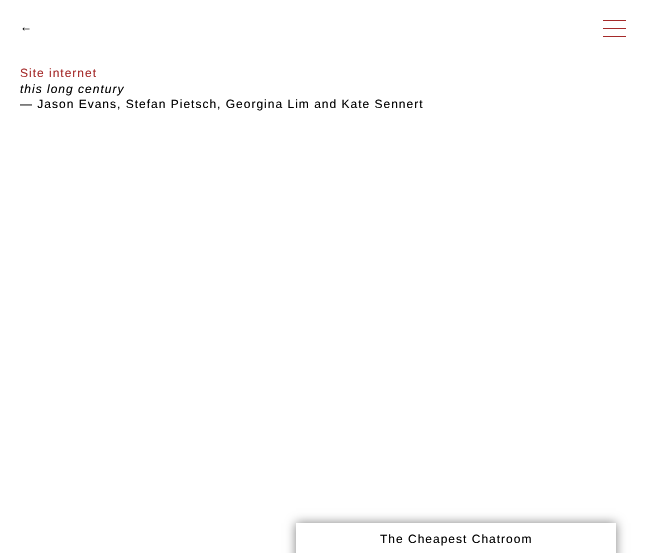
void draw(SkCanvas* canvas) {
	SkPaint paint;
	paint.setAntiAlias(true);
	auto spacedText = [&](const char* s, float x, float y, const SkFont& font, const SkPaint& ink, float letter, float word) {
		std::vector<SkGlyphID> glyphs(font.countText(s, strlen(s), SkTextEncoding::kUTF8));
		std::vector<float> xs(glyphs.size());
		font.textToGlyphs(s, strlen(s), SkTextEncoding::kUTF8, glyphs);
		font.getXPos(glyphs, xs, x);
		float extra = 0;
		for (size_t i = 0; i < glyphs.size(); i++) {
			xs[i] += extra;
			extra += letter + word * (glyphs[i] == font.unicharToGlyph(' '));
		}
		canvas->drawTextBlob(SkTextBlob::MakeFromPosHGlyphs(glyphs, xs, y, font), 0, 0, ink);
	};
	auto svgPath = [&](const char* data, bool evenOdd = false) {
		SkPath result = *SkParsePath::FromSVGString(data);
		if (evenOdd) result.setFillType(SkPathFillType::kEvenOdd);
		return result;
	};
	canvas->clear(0xffffffff);
	SkFont f1(fontMgr->matchFamilyStyle("Liberation Sans", SkFontStyle::Normal()), 12);
	f1.setSubpixel(true);
	paint.setColor(0xff000000);
	spacedText("←", 20, 31, f1, paint, 1, 0);
	paint.setColor(0xffa52a2a);
	spacedText("Site internet", 20, 77, f1, paint, 1, 0);
	SkFont f2(fontMgr->matchFamilyStyle("Liberation Sans", SkFontStyle::Italic()), 12);
	f2.setSubpixel(true);
	paint.setColor(0xff000000);
	spacedText("this long century", 20, 93, f2, paint, 1, 0);
	spacedText("— Jason Evans, Stefan Pietsch, Georgina Lim and Kate Sennert", 20, 108, f1, paint, 1, 0);
	paint.setColor(0xffa52a2a);
	canvas->drawRect(SkRect::MakeXYWH(603, 36, 23, 1), paint);
	canvas->drawRect(SkRect::MakeXYWH(603, 20, 23, 1), paint);
	canvas->drawRect(SkRect::MakeXYWH(603, 28, 23, 1), paint);
	canvas->save();
	canvas->clipPath(svgPath("M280 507H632V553H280ZM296 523H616V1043H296Z", true), true);
	paint.setColor(0xff808080);
	paint.setMaskFilter(SkMaskFilter::MakeBlur(kNormal_SkBlurStyle, 5));
	canvas->drawRect(SkRect::MakeXYWH(296, 523, 320, 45), paint);
	paint.setMaskFilter(nullptr);
	canvas->restore();
	paint.setColor(0xff000000);
	spacedText("The Cheapest Chatroom", 380, 543, f1, paint, 1, 0);
}
